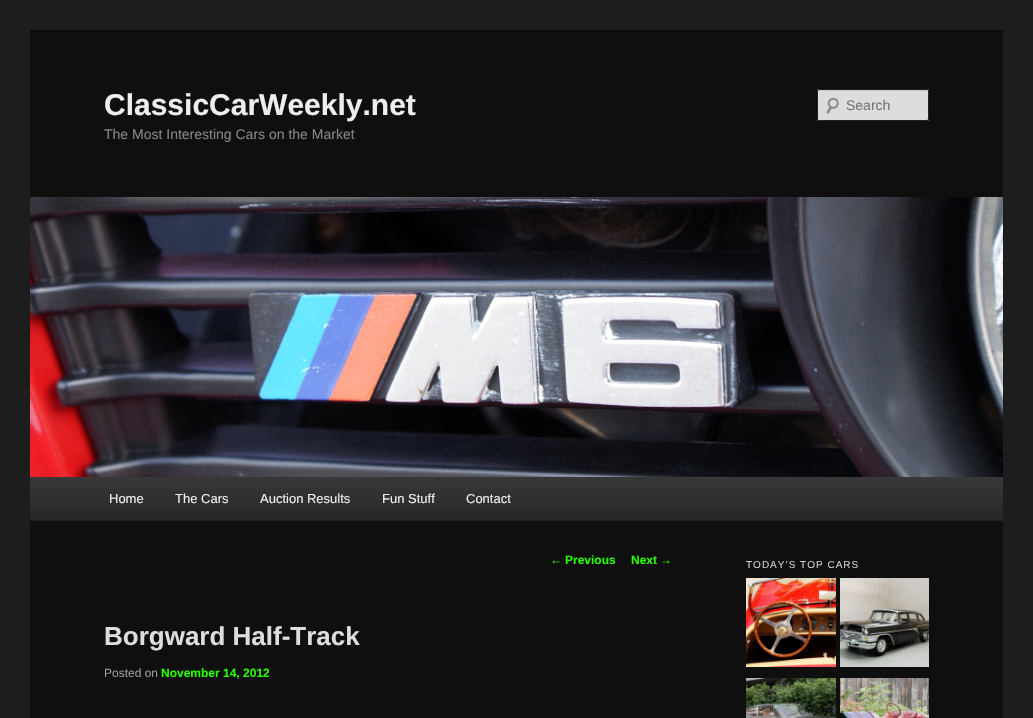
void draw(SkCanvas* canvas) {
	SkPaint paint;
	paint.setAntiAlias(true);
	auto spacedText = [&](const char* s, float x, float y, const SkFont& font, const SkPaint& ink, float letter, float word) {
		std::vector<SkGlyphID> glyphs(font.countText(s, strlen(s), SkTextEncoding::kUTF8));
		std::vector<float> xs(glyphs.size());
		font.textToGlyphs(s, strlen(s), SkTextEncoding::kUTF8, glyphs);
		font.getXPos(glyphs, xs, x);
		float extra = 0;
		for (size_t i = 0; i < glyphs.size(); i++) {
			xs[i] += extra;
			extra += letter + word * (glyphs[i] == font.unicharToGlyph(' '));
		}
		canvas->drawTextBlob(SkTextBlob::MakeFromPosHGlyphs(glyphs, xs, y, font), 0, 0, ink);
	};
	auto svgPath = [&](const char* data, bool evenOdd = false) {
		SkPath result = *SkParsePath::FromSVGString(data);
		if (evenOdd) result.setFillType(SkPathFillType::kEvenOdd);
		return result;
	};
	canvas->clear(0xff1d1d1d);
	paint.setColor(0xff0f0f0f);
	canvas->drawRect(SkRect::MakeXYWH(30, 32, 973, 686), paint);
	paint.setColor(0xff0a0a0a);
	canvas->drawRect(SkRect::MakeXYWH(30, 30, 973, 2), paint);
	SkFont f1(fontMgr->matchFamilyStyle("Liberation Sans", SkFontStyle::Bold()), 30);
	f1.setSubpixel(true);
	paint.setColor(0xffeeeeee);
	canvas->drawString("ClassicCarWeekly.net", 104, 115, f1, paint);
	SkFont f2(fontMgr->matchFamilyStyle("Liberation Sans", SkFontStyle::Normal()), 14);
	f2.setSubpixel(true);
	paint.setColor(0xff858585);
	canvas->drawString("The Most Interesting Cars on the Market", 104, 139, f2, paint);
	paint.setColor(0xffdddddd);
	canvas->drawRoundRect(SkRect::MakeXYWH(817, 89, 112, 32), 2, 2, paint);
	canvas->drawImageRect(SkImages::DeferredFromEncodedData(SkData::MakeFromFileName("img1.png")), SkRect::MakeXYWH(826, 97, 13, 17), SkSamplingOptions());
	paint.setColor(0x1a000000);
	canvas->drawPath(svgPath("M819 91H928V92L927 90H837C833 90 818 85 818 92C818 91 818 91 819 91Z"), paint);
	paint.setStroke(true);
	paint.setStrokeWidth(1);
	paint.setColor(0xff222222);
	canvas->drawRoundRect(SkRect::MakeXYWH(817.5, 89.5, 111, 31), 1.5, 1.5, paint);
	paint.setStroke(false);
	paint.setColor(0xff757575);
	canvas->drawString("Search", 846, 110, f2, paint);
	canvas->drawImageRect(SkImages::DeferredFromEncodedData(SkData::MakeFromFileName("img2.png")), SkRect::MakeXYWH(30, 197, 973, 280), SkSamplingOptions());
	{
		const SkColor colors[] = {0xff383838, 0xff272727};
		const float stops[] = {0, 1};
		const SkPoint ends[] = {{517, 477}, {517, 520}};
		paint.setShader(SkGradientShader::MakeLinear(ends, colors, stops, 2, SkTileMode::kClamp));
		paint.setAlpha(255);
	}
	canvas->drawRect(SkRect::MakeXYWH(30, 477, 973, 43), paint);
	paint.setShader(nullptr);
	paint.setColor(0xff222222);
	canvas->drawRect(SkRect::MakeXYWH(30, 520, 973, 1), paint);
	SkFont f3(fontMgr->matchFamilyStyle("Liberation Sans", SkFontStyle::Normal()), 13);
	f3.setSubpixel(true);
	paint.setColor(0xffeeeeee);
	canvas->drawString("Home", 109, 503, f3, paint);
	canvas->drawString("The Cars", 175, 503, f3, paint);
	canvas->drawString("Auction Results", 260, 503, f3, paint);
	canvas->drawString("Fun Stuff", 382, 503, f3, paint);
	canvas->drawString("Contact", 466, 503, f3, paint);
	SkFont f4(fontMgr->matchFamilyStyle("Liberation Sans", SkFontStyle::Normal()), 12);
	f4.setSubpixel(true);
	paint.setColor(0xff26ff00);
	canvas->drawString("←", 550, 564, f4, paint);
	SkFont f5(fontMgr->matchFamilyStyle("Liberation Sans", SkFontStyle::Bold()), 12);
	f5.setSubpixel(true);
	canvas->drawString("Previous", 565, 564, f5, paint);
	canvas->drawString("Next", 631, 564, f5, paint);
	canvas->drawString("→", 660, 564, f4, paint);
	SkFont f6(fontMgr->matchFamilyStyle("Liberation Sans", SkFontStyle::Bold()), 26);
	f6.setSubpixel(true);
	paint.setColor(0xffdddddd);
	canvas->drawString("Borgward Half-Track", 104, 645, f6, paint);
	paint.setColor(0xff999999);
	canvas->drawString("Posted on", 104, 677, f4, paint);
	paint.setColor(0xff26ff00);
	canvas->drawString("November 14, 2012", 161, 677, f5, paint);
	SkFont f7(fontMgr->matchFamilyStyle("Liberation Sans", SkFontStyle::Normal()), 10);
	f7.setSubpixel(true);
	paint.setColor(0xffcccccc);
	spacedText("TODAY’S TOP CARS", 746, 568, f7, paint, 1, 0);
	canvas->drawImageRect(SkImages::DeferredFromEncodedData(SkData::MakeFromFileName("img3.png")), SkRect::MakeXYWH(746, 578, 90, 89), SkSamplingOptions());
	canvas->drawImageRect(SkImages::DeferredFromEncodedData(SkData::MakeFromFileName("img4.png")), SkRect::MakeXYWH(840, 578, 89, 89), SkSamplingOptions());
	canvas->drawImageRect(SkImages::DeferredFromEncodedData(SkData::MakeFromFileName("img5.png")), SkRect::MakeXYWH(746, 678, 90, 40), SkSamplingOptions());
	canvas->drawImageRect(SkImages::DeferredFromEncodedData(SkData::MakeFromFileName("img6.png")), SkRect::MakeXYWH(840, 678, 89, 40), SkSamplingOptions());
}
